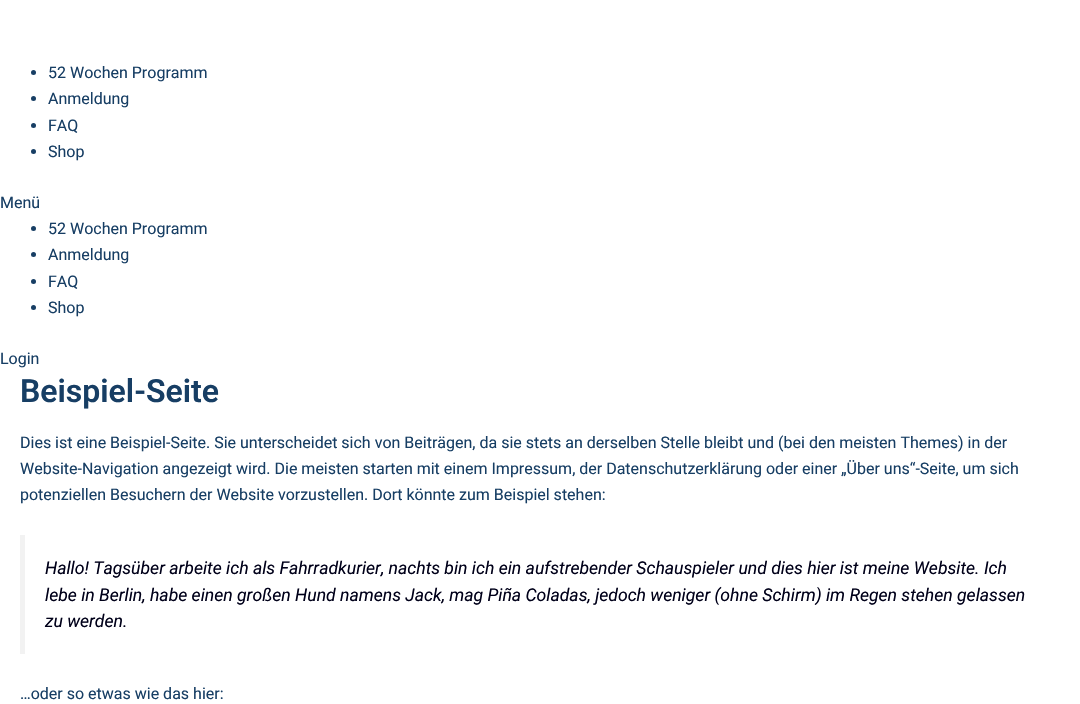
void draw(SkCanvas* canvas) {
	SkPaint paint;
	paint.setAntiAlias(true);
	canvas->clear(0xffffffff);
	paint.setColor(0xff173e64);
	canvas->drawCircle(33.5, 72.5, 2.5, paint);
	SkFont f1(fontMgr->matchFamilyStyle("Roboto", SkFontStyle::Normal()), 16);
	f1.setSubpixel(true);
	canvas->drawString("52 Wochen Programm", 48, 78, f1, paint);
	canvas->drawCircle(33.5, 98.5, 2.5, paint);
	canvas->drawString("Anmeldung", 48, 104, f1, paint);
	canvas->drawCircle(33.5, 125.5, 2.5, paint);
	canvas->drawString("FAQ", 48, 131, f1, paint);
	canvas->drawCircle(33.5, 151.5, 2.5, paint);
	canvas->drawString("Shop", 48, 157, f1, paint);
	canvas->drawString("Menü", 0, 208, f1, paint);
	canvas->drawCircle(33.5, 228.5, 2.5, paint);
	canvas->drawString("52 Wochen Programm", 48, 234, f1, paint);
	canvas->drawCircle(33.5, 254.5, 2.5, paint);
	canvas->drawString("Anmeldung", 48, 260, f1, paint);
	canvas->drawCircle(33.5, 281.5, 2.5, paint);
	canvas->drawString("FAQ", 48, 287, f1, paint);
	canvas->drawCircle(33.5, 307.5, 2.5, paint);
	canvas->drawString("Shop", 48, 313, f1, paint);
	canvas->drawString("Login", 0, 364, f1, paint);
	SkFont f2(fontMgr->matchFamilyStyle("Roboto", SkFontStyle(600, SkFontStyle::kNormal_Width, SkFontStyle::kUpright_Slant)), 32);
	f2.setSubpixel(true);
	canvas->drawString("Beispiel-Seite", 20, 402, f2, paint);
	canvas->drawString("Dies ist eine Beispiel-Seite. Sie unterscheidet sich von Beiträgen, da sie stets an derselben Stelle bleibt und (bei den meisten Themes) in der", 20, 448, f1, paint);
	canvas->drawString("Website-Navigation angezeigt wird. Die meisten starten mit einem Impressum, der Datenschutzerklärung oder einer „Über uns“-Seite, um sich", 20, 474, f1, paint);
	canvas->drawString("potenziellen Besuchern der Website vorzustellen. Dort könnte zum Beispiel stehen:", 20, 500, f1, paint);
	paint.setColor(0xfff2f2f2);
	canvas->drawRect(SkRect::MakeXYWH(20, 535, 5, 119), paint);
	SkFont f3(fontMgr->matchFamilyStyle("Roboto", SkFontStyle::Italic()), 17.6);
	f3.setSubpixel(true);
	paint.setColor(0xff000019);
	canvas->drawString("Hallo! Tagsüber arbeite ich als Fahrradkurier, nachts bin ich ein aufstrebender Schauspieler und dies hier ist meine Website. Ich", 45, 574, f3, paint);
	canvas->drawString("lebe in Berlin, habe einen großen Hund namens Jack, mag Piña Coladas, jedoch weniger (ohne Schirm) im Regen stehen gelassen", 45, 601, f3, paint);
	canvas->drawString("zu werden.", 45, 627, f3, paint);
	paint.setColor(0xff173e64);
	canvas->drawString("…oder so etwas wie das hier:", 20, 699, f1, paint);
}
